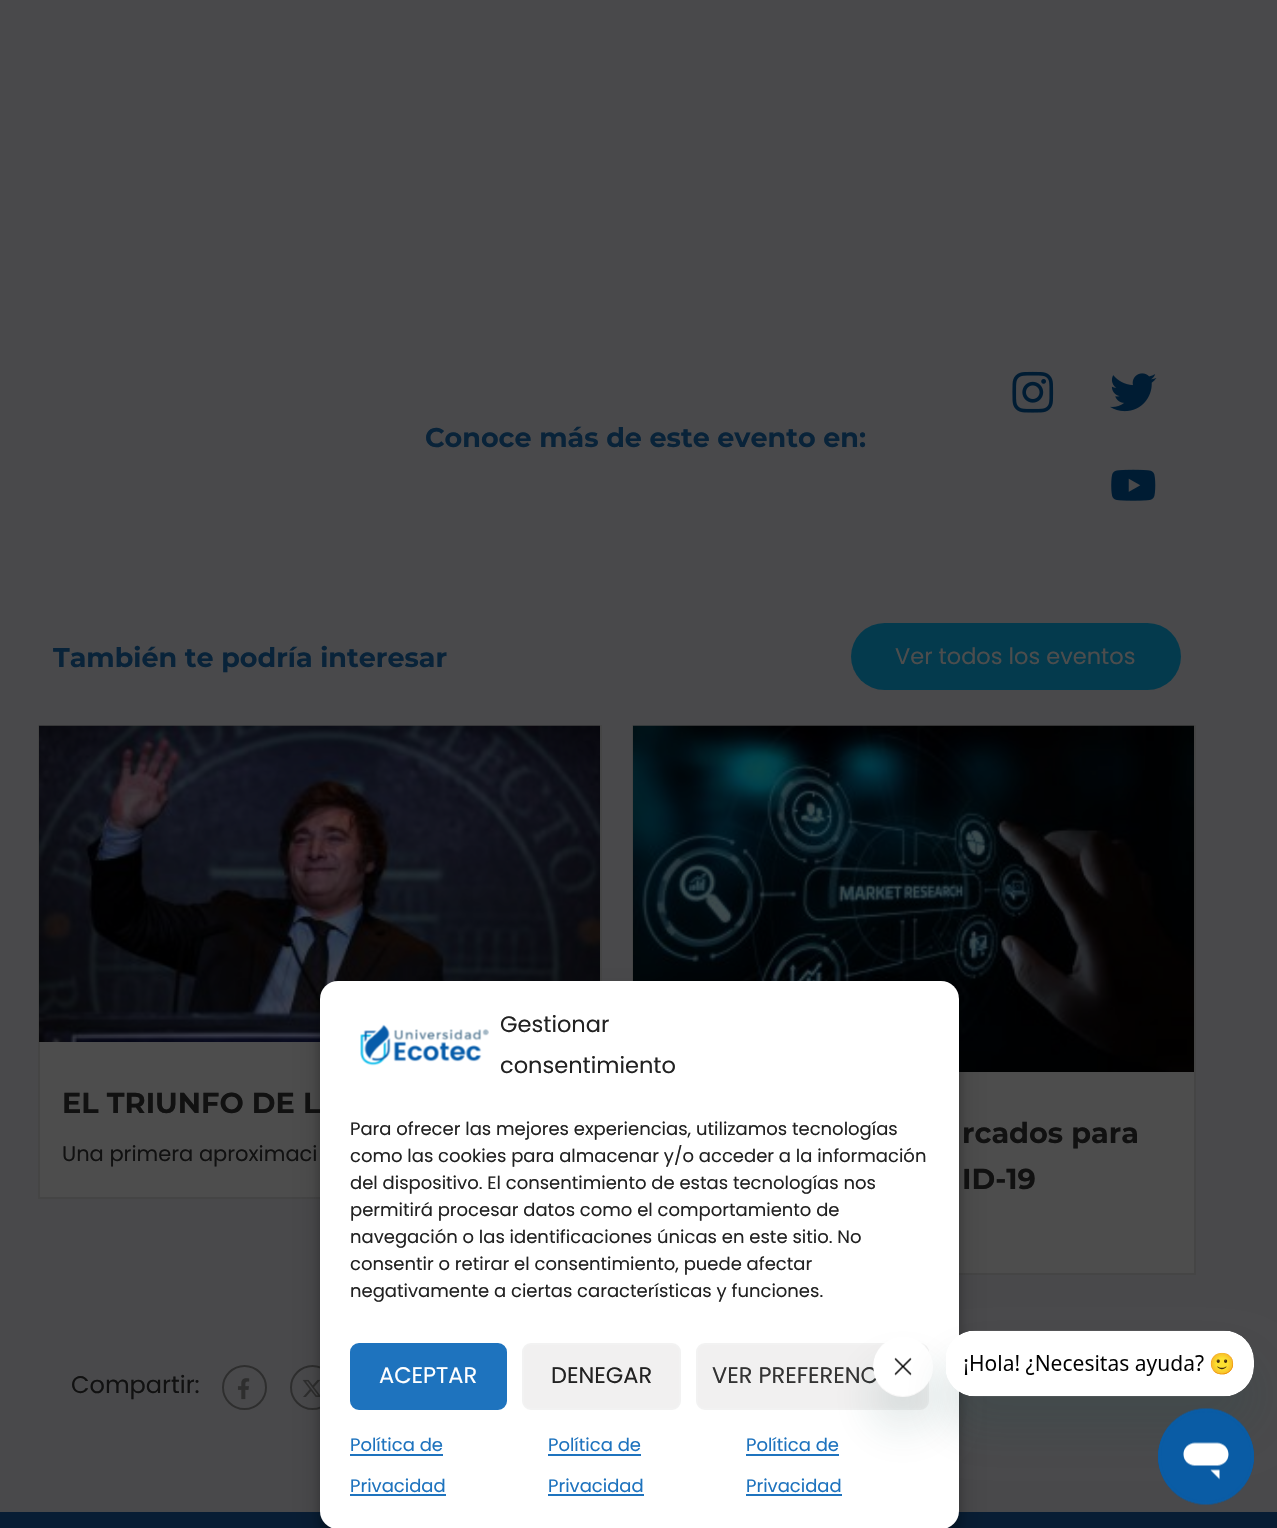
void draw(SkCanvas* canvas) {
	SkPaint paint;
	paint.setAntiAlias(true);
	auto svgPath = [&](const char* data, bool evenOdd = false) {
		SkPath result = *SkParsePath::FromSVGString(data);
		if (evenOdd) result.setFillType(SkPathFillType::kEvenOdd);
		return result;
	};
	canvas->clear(0xff49494b);
	SkFont f1(fontMgr->matchFamilyStyle("Montserrat", SkFontStyle::Bold()), 27);
	f1.setSubpixel(true);
	paint.setColor(0xff092339);
	canvas->drawString("Conoce más de este evento en:", 425, 447, f1, paint);
	canvas->drawImageRect(SkImages::DeferredFromEncodedData(SkData::MakeFromFileName("img1.png")), SkRect::MakeXYWH(1012, 371, 42, 42), SkSamplingOptions());
	canvas->drawImageRect(SkImages::DeferredFromEncodedData(SkData::MakeFromFileName("img2.png")), SkRect::MakeXYWH(1110, 373, 47, 39), SkSamplingOptions());
	canvas->drawImageRect(SkImages::DeferredFromEncodedData(SkData::MakeFromFileName("img3.png")), SkRect::MakeXYWH(1111, 469, 45, 32), SkSamplingOptions());
	canvas->drawString("También te podría interesar", 53, 667, f1, paint);
	paint.setColor(0xff043a4d);
	canvas->drawRoundRect(SkRect::MakeXYWH(851, 623, 330, 67), 33.5, 33.5, paint);
	SkFont f2(fontMgr->matchFamilyStyle("Poppins", SkFontStyle::Normal()), 22.5);
	f2.setSubpixel(true);
	paint.setColor(0xff4d4d4d);
	canvas->drawString("Ver todos los eventos", 895, 664, f2, paint);
	canvas->drawRect(SkRect::MakeXYWH(40, 1042, 280, 155), paint);
	paint.setStroke(true);
	paint.setStrokeWidth(2);
	paint.setColor(0xff454545);
	canvas->drawRect(SkRect::MakeXYWH(39, 726, 562, 472), paint);
	canvas->drawImageRect(SkImages::DeferredFromEncodedData(SkData::MakeFromFileName("img4.png")), SkRect::MakeXYWH(39, 725, 561, 317), SkSamplingOptions());
	SkFont f3(fontMgr->matchFamilyStyle("Montserrat", SkFontStyle::Bold()), 28.75);
	f3.setSubpixel(true);
	paint.setStroke(false);
	paint.setColor(0xff111111);
	canvas->drawString("EL TRIUNFO DE L", 62, 1113, f3, paint);
	SkFont f4(fontMgr->matchFamilyStyle("Poppins", SkFontStyle::Normal()), 21);
	f4.setSubpixel(true);
	canvas->drawString("Una primera aproximaci", 62, 1161, f4, paint);
	paint.setColor(0xff4d4d4d);
	canvas->drawRect(SkRect::MakeXYWH(959, 1072, 235, 201), paint);
	paint.setStroke(true);
	paint.setColor(0xff454545);
	canvas->drawRect(SkRect::MakeXYWH(633, 726, 562, 548), paint);
	canvas->drawImageRect(SkImages::DeferredFromEncodedData(SkData::MakeFromFileName("img5.png")), SkRect::MakeXYWH(633, 725, 561, 347), SkSamplingOptions());
	paint.setStroke(false);
	paint.setColor(0xff111111);
	canvas->drawString("rcados para", 962, 1143, f3, paint);
	canvas->drawString("ID-19", 962, 1189, f3, paint);
	SkFont f5(fontMgr->matchFamilyStyle("Poppins", SkFontStyle::Normal()), 24);
	f5.setSubpixel(true);
	canvas->drawString("Compartir:", 71, 1393, f5, paint);
	paint.setStroke(true);
	paint.setColor(0xff2e2e2e);
	canvas->drawCircle(244.5, 1387.5, 21.5, paint);
	canvas->drawImageRect(SkImages::DeferredFromEncodedData(SkData::MakeFromFileName("img6.png")), SkRect::MakeXYWH(237, 1378, 13, 22), SkSamplingOptions());
	canvas->drawCircle(312.5, 1387.5, 21.5, paint);
	canvas->drawImageRect(SkImages::DeferredFromEncodedData(SkData::MakeFromFileName("img7.png")), SkRect::MakeXYWH(302, 1379, 18, 18), SkSamplingOptions());
	paint.setStroke(false);
	paint.setColor(0xff081d34);
	canvas->drawRect(SkRect::MakeXYWH(0, 1512, 1277, 16), paint);
	paint.setColor(0x3b000000);
	paint.setMaskFilter(SkMaskFilter::MakeBlur(kNormal_SkBlurStyle, 4.5));
	canvas->drawRoundRect(SkRect::MakeXYWH(320, 990, 639, 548), 18, 18, paint);
	paint.setMaskFilter(nullptr);
	paint.setColor(0x30000000);
	paint.setMaskFilter(SkMaskFilter::MakeBlur(kNormal_SkBlurStyle, 15));
	canvas->drawRoundRect(SkRect::MakeXYWH(320, 996, 639, 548), 18, 18, paint);
	paint.setMaskFilter(nullptr);
	paint.setColor(0xffffffff);
	canvas->drawRoundRect(SkRect::MakeXYWH(320, 981, 639, 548), 18, 18, paint);
	canvas->drawImageRect(SkImages::DeferredFromEncodedData(SkData::MakeFromFileName("img8.png")), SkRect::MakeXYWH(360, 1024, 129, 42), SkSamplingOptions());
	paint.setColor(0xff222222);
	canvas->drawString("Gestionar", 500, 1032, f2, paint);
	canvas->drawString("consentimiento", 500, 1073, f2, paint);
	SkFont f6(fontMgr->matchFamilyStyle("Poppins", SkFontStyle::Normal()), 18);
	f6.setSubpixel(true);
	canvas->drawString("Para ofrecer las mejores experiencias, utilizamos tecnologías", 350, 1135, f6, paint);
	canvas->drawString("como las cookies para almacenar y/o acceder a la información", 350, 1162, f6, paint);
	canvas->drawString("del dispositivo. El consentimiento de estas tecnologías nos", 350, 1189, f6, paint);
	canvas->drawString("permitirá procesar datos como el comportamiento de", 350, 1216, f6, paint);
	canvas->drawString("navegación o las identificaciones únicas en este sitio. No", 350, 1243, f6, paint);
	canvas->drawString("consentir o retirar el consentimiento, puede afectar", 350, 1270, f6, paint);
	canvas->drawString("negativamente a ciertas características y funciones.", 350, 1297, f6, paint);
	paint.setColor(0xff1e73be);
	canvas->drawRoundRect(SkRect::MakeXYWH(351, 1344, 155, 65), 8, 8, paint);
	paint.setStroke(true);
	canvas->drawRoundRect(SkRect::MakeXYWH(351, 1344, 155, 65), 8, 8, paint);
	paint.setStroke(false);
	paint.setColor(0xffffffff);
	canvas->drawString("ACEPTAR", 379, 1383, f2, paint);
	paint.setColor(0xfff1f0f0);
	canvas->drawRoundRect(SkRect::MakeXYWH(523, 1344, 157, 65), 8, 8, paint);
	paint.setStroke(true);
	paint.setColor(0xfff2f2f2);
	canvas->drawRoundRect(SkRect::MakeXYWH(523, 1344, 157, 65), 8, 8, paint);
	paint.setStroke(false);
	paint.setColor(0xff222222);
	canvas->drawString("DENEGAR", 551, 1383, f2, paint);
	paint.setColor(0xfff1f0f0);
	canvas->drawRoundRect(SkRect::MakeXYWH(697, 1344, 231, 65), 8, 8, paint);
	paint.setStroke(true);
	paint.setColor(0xfff2f2f2);
	canvas->drawRoundRect(SkRect::MakeXYWH(697, 1344, 231, 65), 8, 8, paint);
	paint.setStroke(false);
	paint.setColor(0xff333333);
	canvas->drawString("VER PREFERENC", 712, 1383, f2, paint);
	paint.setColor(0xff1e73be);
	canvas->drawString("Política de", 350, 1451, f6, paint);
	canvas->drawRect(SkRect::MakeXYWH(350, 1454, 93, 2), paint);
	canvas->drawString("Privacidad", 350, 1492, f6, paint);
	canvas->drawRect(SkRect::MakeXYWH(350, 1494, 96, 2), paint);
	canvas->drawString("Política de", 548, 1451, f6, paint);
	canvas->drawRect(SkRect::MakeXYWH(548, 1454, 93, 2), paint);
	canvas->drawString("Privacidad", 548, 1492, f6, paint);
	canvas->drawRect(SkRect::MakeXYWH(548, 1494, 96, 2), paint);
	canvas->drawString("Política de", 746, 1451, f6, paint);
	canvas->drawRect(SkRect::MakeXYWH(746, 1454, 93, 2), paint);
	canvas->drawString("Privacidad", 746, 1492, f6, paint);
	canvas->drawRect(SkRect::MakeXYWH(746, 1494, 96, 2), paint);
	canvas->save();
	canvas->clipPath(svgPath("M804 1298H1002V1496H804ZM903 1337C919.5 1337 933 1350.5 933 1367C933 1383.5 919.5 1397 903 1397C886.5 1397 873 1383.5 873 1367C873 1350.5 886.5 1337 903 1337Z", true), true);
	paint.setColor(0x2617494d);
	paint.setMaskFilter(SkMaskFilter::MakeBlur(kNormal_SkBlurStyle, 22.5));
	canvas->drawRoundRect(SkRect::MakeXYWH(873, 1367, 60, 60), 30, 30, paint);
	paint.setMaskFilter(nullptr);
	canvas->restore();
	canvas->drawImageRect(SkImages::DeferredFromEncodedData(SkData::MakeFromFileName("img10.png")), SkRect::MakeXYWH(873, 1343, 56, 54), SkSamplingOptions());
	paint.setMaskFilter(SkMaskFilter::MakeBlur(kNormal_SkBlurStyle, 22.5));
	canvas->drawRoundRect(SkRect::MakeXYWH(945, 1361, 309, 66), 30, 30, paint);
	paint.setMaskFilter(nullptr);
	canvas->drawImageRect(SkImages::DeferredFromEncodedData(SkData::MakeFromFileName("img9.png")), SkRect::MakeXYWH(946, 1330, 308, 67), SkSamplingOptions());
	canvas->drawImageRect(SkImages::DeferredFromEncodedData(SkData::MakeFromFileName("img11.png")), SkRect::MakeXYWH(1158, 1408, 96, 97), SkSamplingOptions());
}
